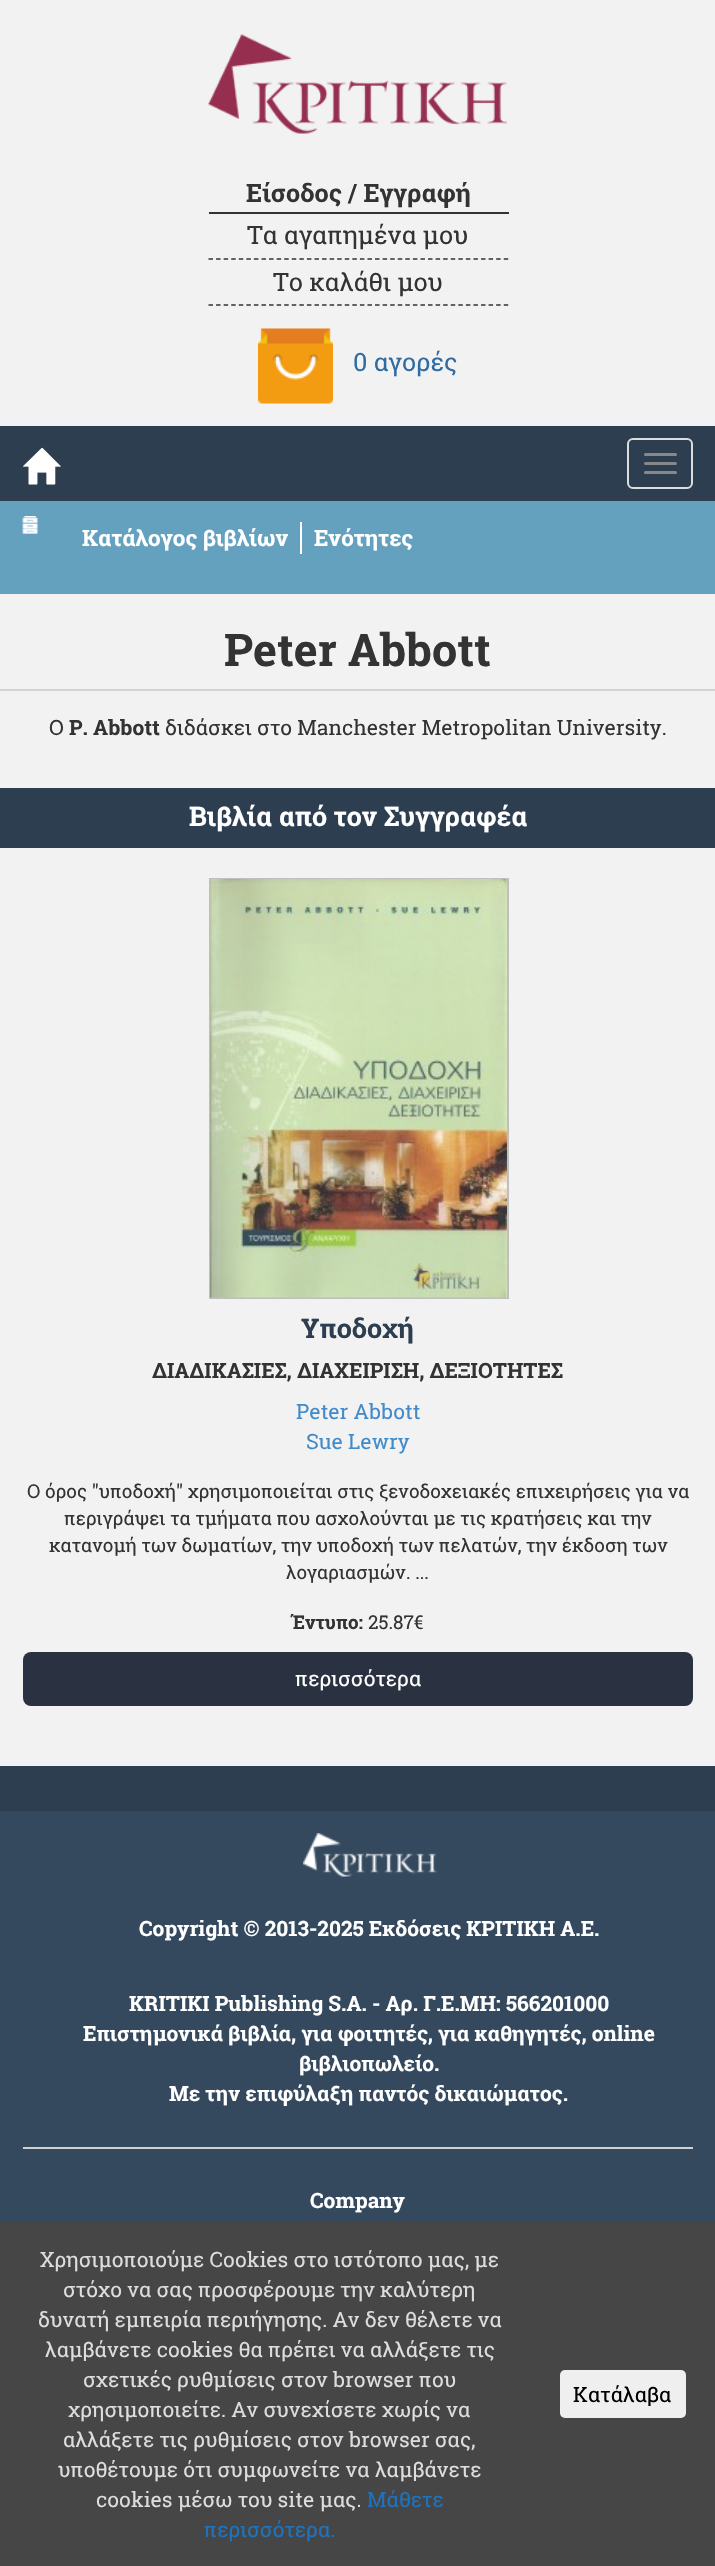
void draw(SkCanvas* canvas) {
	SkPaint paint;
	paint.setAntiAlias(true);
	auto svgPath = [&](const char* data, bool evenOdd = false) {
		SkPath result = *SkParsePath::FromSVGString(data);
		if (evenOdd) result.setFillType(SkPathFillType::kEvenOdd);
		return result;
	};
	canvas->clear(0xfff2f2f2);
	canvas->drawImageRect(SkImages::DeferredFromEncodedData(SkData::MakeFromFileName("img1.png")), SkRect::MakeXYWH(208, 34, 299, 100), SkSamplingOptions());
	paint.setColor(0xff333333);
	canvas->drawRect(SkRect::MakeXYWH(209, 212, 300, 2), paint);
	SkFont f1(fontMgr->matchFamilyStyle("Roboto Slab", SkFontStyle::Bold()), 25.25);
	f1.setSubpixel(true);
	canvas->drawString("Είσοδος / Εγγραφή", 246, 202, f1, paint);
	paint.setStroke(true);
	paint.setStrokeWidth(1.5);
	paint.setPathEffect(SkDashPathEffect::Make({{4.5f, 3.07f}}, 0));
	canvas->drawPath(svgPath("M208.5 259H508.5"), paint);
	paint.setPathEffect(nullptr);
	SkFont f2(fontMgr->matchFamilyStyle("Roboto Slab", SkFontStyle::Normal()), 25.25);
	f2.setSubpixel(true);
	paint.setStroke(false);
	canvas->drawString("Τα αγαπημένα μου", 247, 244, f2, paint);
	paint.setStroke(true);
	paint.setPathEffect(SkDashPathEffect::Make({{4.5f, 3.07f}}, 0));
	canvas->drawPath(svgPath("M208.5 305H508.5"), paint);
	paint.setPathEffect(nullptr);
	paint.setStroke(false);
	canvas->drawString("Το καλάθι μου", 273, 291, f2, paint);
	canvas->drawImageRect(SkImages::DeferredFromEncodedData(SkData::MakeFromFileName("img2.png")), SkRect::MakeXYWH(258, 328, 75, 76), SkSamplingOptions());
	paint.setColor(0xff2e6ca2);
	canvas->drawString("0 αγορές", 353, 371, f2, paint);
	paint.setColor(0xff2c3e50);
	canvas->drawRect(SkRect::MakeXYWH(0, 426, 715, 75), paint);
	canvas->drawImageRect(SkImages::DeferredFromEncodedData(SkData::MakeFromFileName("img3.png")), SkRect::MakeXYWH(23, 447, 38, 38), SkSamplingOptions());
	paint.setStroke(true);
	paint.setStrokeWidth(2);
	paint.setColor(0xffdddddd);
	canvas->drawRoundRect(SkRect::MakeXYWH(628, 439, 64, 49), 5, 5, paint);
	paint.setStroke(false);
	paint.setColor(0xff888888);
	canvas->drawRoundRect(SkRect::MakeXYWH(644, 453, 33, 3), 1.5, 1.5, paint);
	canvas->drawRoundRect(SkRect::MakeXYWH(644, 462, 33, 3), 1.5, 1.5, paint);
	canvas->drawRoundRect(SkRect::MakeXYWH(644, 471, 33, 3), 1.5, 1.5, paint);
	paint.setColor(0xff64a1be);
	canvas->drawRect(SkRect::MakeXYWH(0, 501, 715, 93), paint);
	canvas->drawImageRect(SkImages::DeferredFromEncodedData(SkData::MakeFromFileName("img4.png")), SkRect::MakeXYWH(22, 516, 16, 18), SkSamplingOptions());
	SkFont f3(fontMgr->matchFamilyStyle("Roboto Slab", SkFontStyle::Bold()), 22.5);
	f3.setSubpixel(true);
	paint.setColor(0xffffffff);
	canvas->drawString("Κατάλογος βιβλίων", 82, 546, f3, paint);
	canvas->drawRect(SkRect::MakeXYWH(300, 522, 2, 32), paint);
	canvas->drawString("Ενότητες", 314, 546, f3, paint);
	paint.setColor(0xffd3d3d3);
	canvas->drawRect(SkRect::MakeXYWH(0, 689, 715, 2), paint);
	SkFont f4(fontMgr->matchFamilyStyle("Roboto Slab", SkFontStyle::Bold()), 45);
	f4.setSubpixel(true);
	paint.setColor(0xff333333);
	canvas->drawString("Peter Abbott", 224, 666, f4, paint);
	SkFont f5(fontMgr->matchFamilyStyle("Roboto Slab", SkFontStyle::Normal()), 21);
	f5.setSubpixel(true);
	canvas->drawString("Ο", 49, 735, f5, paint);
	SkFont f6(fontMgr->matchFamilyStyle("Roboto Slab", SkFontStyle::Bold()), 21);
	f6.setSubpixel(true);
	canvas->drawString("P. Abbott", 69, 735, f6, paint);
	canvas->drawString("διδάσκει στο Manchester Metropolitan University.", 165, 735, f5, paint);
	paint.setColor(0xff2c3e50);
	canvas->drawRect(SkRect::MakeXYWH(0, 788, 715, 60), paint);
	SkFont f7(fontMgr->matchFamilyStyle("Roboto Slab", SkFontStyle::Bold()), 27);
	f7.setSubpixel(true);
	paint.setColor(0xffffffff);
	canvas->drawString("Βιβλία από τον Συγγραφέα", 189, 826, f7, paint);
	paint.setStroke(true);
	paint.setColor(0xffbfbfbf);
	canvas->drawRect(SkRect::MakeXYWH(210, 879, 298, 419), paint);
	canvas->drawImageRect(SkImages::DeferredFromEncodedData(SkData::MakeFromFileName("img5.png")), SkRect::MakeXYWH(210, 879, 297, 419), SkSamplingOptions());
	paint.setStroke(false);
	paint.setColor(0xff2c3e50);
	canvas->drawString("Υποδοχή", 301, 1338, f7, paint);
	paint.setColor(0xff333333);
	canvas->drawString("ΔΙΑΔΙΚΑΣΙΕΣ, ΔΙΑΧΕΙΡΙΣΗ, ΔΕΞΙΟΤΗΤΕΣ", 152, 1378, f6, paint);
	paint.setColor(0xff428bca);
	canvas->drawString("Peter Abbott", 296, 1419, f5, paint);
	canvas->drawString("Sue Lewry", 306, 1449, f5, paint);
	SkFont f8(fontMgr->matchFamilyStyle("Roboto Slab", SkFontStyle::Normal()), 18.9);
	f8.setSubpixel(true);
	paint.setColor(0xff333333);
	canvas->drawString("Ο όρος \"υποδοχή\" χρησιμοποιείται στις ξενοδοχειακές επιχειρήσεις για να", 27, 1498, f8, paint);
	canvas->drawString("περιγράψει τα τμήματα που ασχολούνται με τις κρατήσεις και την", 64, 1525, f8, paint);
	canvas->drawString("κατανομή των δωματίων, την υποδοχή των πελατών, την έκδοση των", 49, 1552, f8, paint);
	canvas->drawString("λογαριασμών. ...", 286, 1579, f8, paint);
	SkFont f9(fontMgr->matchFamilyStyle("Roboto Slab", SkFontStyle::Bold()), 18.9);
	f9.setSubpixel(true);
	canvas->drawString("Έντυπο:", 292, 1629, f9, paint);
	canvas->drawString("25.87€", 368, 1629, f8, paint);
	paint.setColor(0xff2a3141);
	canvas->drawRoundRect(SkRect::MakeXYWH(23, 1652, 670, 54), 8, 8, paint);
	paint.setColor(0xffffffff);
	canvas->drawString("περισσότερα", 295, 1686, f5, paint);
	paint.setColor(0xff34495e);
	canvas->drawRect(SkRect::MakeXYWH(0, 1811, 715, 411), paint);
	paint.setColor(0xff2c3e50);
	canvas->drawRect(SkRect::MakeXYWH(0, 1766, 715, 45), paint);
	canvas->drawImageRect(SkImages::DeferredFromEncodedData(SkData::MakeFromFileName("img6.png")), SkRect::MakeXYWH(303, 1833, 134, 44), SkSamplingOptions());
	paint.setColor(0xffffffff);
	canvas->drawString("Copyright © 2013-2025 Εκδόσεις ΚΡΙΤΙΚΗ Α.Ε.", 139, 1936, f6, paint);
	canvas->drawString("KRITIKI Publishing S.A. - Αρ. Γ.Ε.ΜΗ: 566201000", 129, 2011, f6, paint);
	canvas->drawString("Επιστημονικά βιβλία, για φοιτητές, για καθηγητές, online", 83, 2041, f6, paint);
	canvas->drawString("βιβλιοπωλείο.", 299, 2071, f6, paint);
	canvas->drawString("Με την επιφύλαξη παντός δικαιώματος.", 169, 2101, f6, paint);
	paint.setColor(0xffd1d1d1);
	canvas->drawRect(SkRect::MakeXYWH(23, 2147, 670, 2), paint);
	paint.setColor(0xffffffff);
	canvas->drawString("Company", 310, 2208, f6, paint);
	paint.setColor(0xff464646);
	canvas->drawRect(SkRect::MakeXYWH(0, 2222, 715, 344), paint);
	paint.setColor(0xffdddddd);
	canvas->drawString("Χρησιμοποιούμε Cookies στο ιστότοπο μας, με", 40, 2267, f5, paint);
	canvas->drawString("στόχο να σας προσφέρουμε την καλύτερη", 63, 2297, f5, paint);
	canvas->drawString("δυνατή εμπειρία περιήγησης. Αν δεν θέλετε να", 38, 2327, f5, paint);
	canvas->drawString("λαμβάνετε cookies θα πρέπει να αλλάξετε τις", 45, 2357, f5, paint);
	canvas->drawString("σχετικές ρυθμίσεις στον browser που", 83, 2387, f5, paint);
	canvas->drawString("χρησιμοποιείτε. Αν συνεχίσετε χωρίς να", 68, 2417, f5, paint);
	canvas->drawString("αλλάξετε τις ρυθμίσεις στον browser σας,", 63, 2447, f5, paint);
	canvas->drawString("υποθέτουμε ότι συμφωνείτε να λαμβάνετε", 58, 2477, f5, paint);
	canvas->drawString("cookies μέσω του site μας.", 96, 2507, f5, paint);
	paint.setColor(0xff1e73be);
	canvas->drawString("Μάθετε", 367, 2507, f5, paint);
	canvas->drawString("περισσότερα.", 204, 2537, f5, paint);
	paint.setColor(0xffefefef);
	canvas->drawRoundRect(SkRect::MakeXYWH(560, 2370, 126, 48), 5, 5, paint);
	paint.setColor(0xff000000);
	canvas->drawString("Κατάλαβα", 573, 2402, f5, paint);
}
